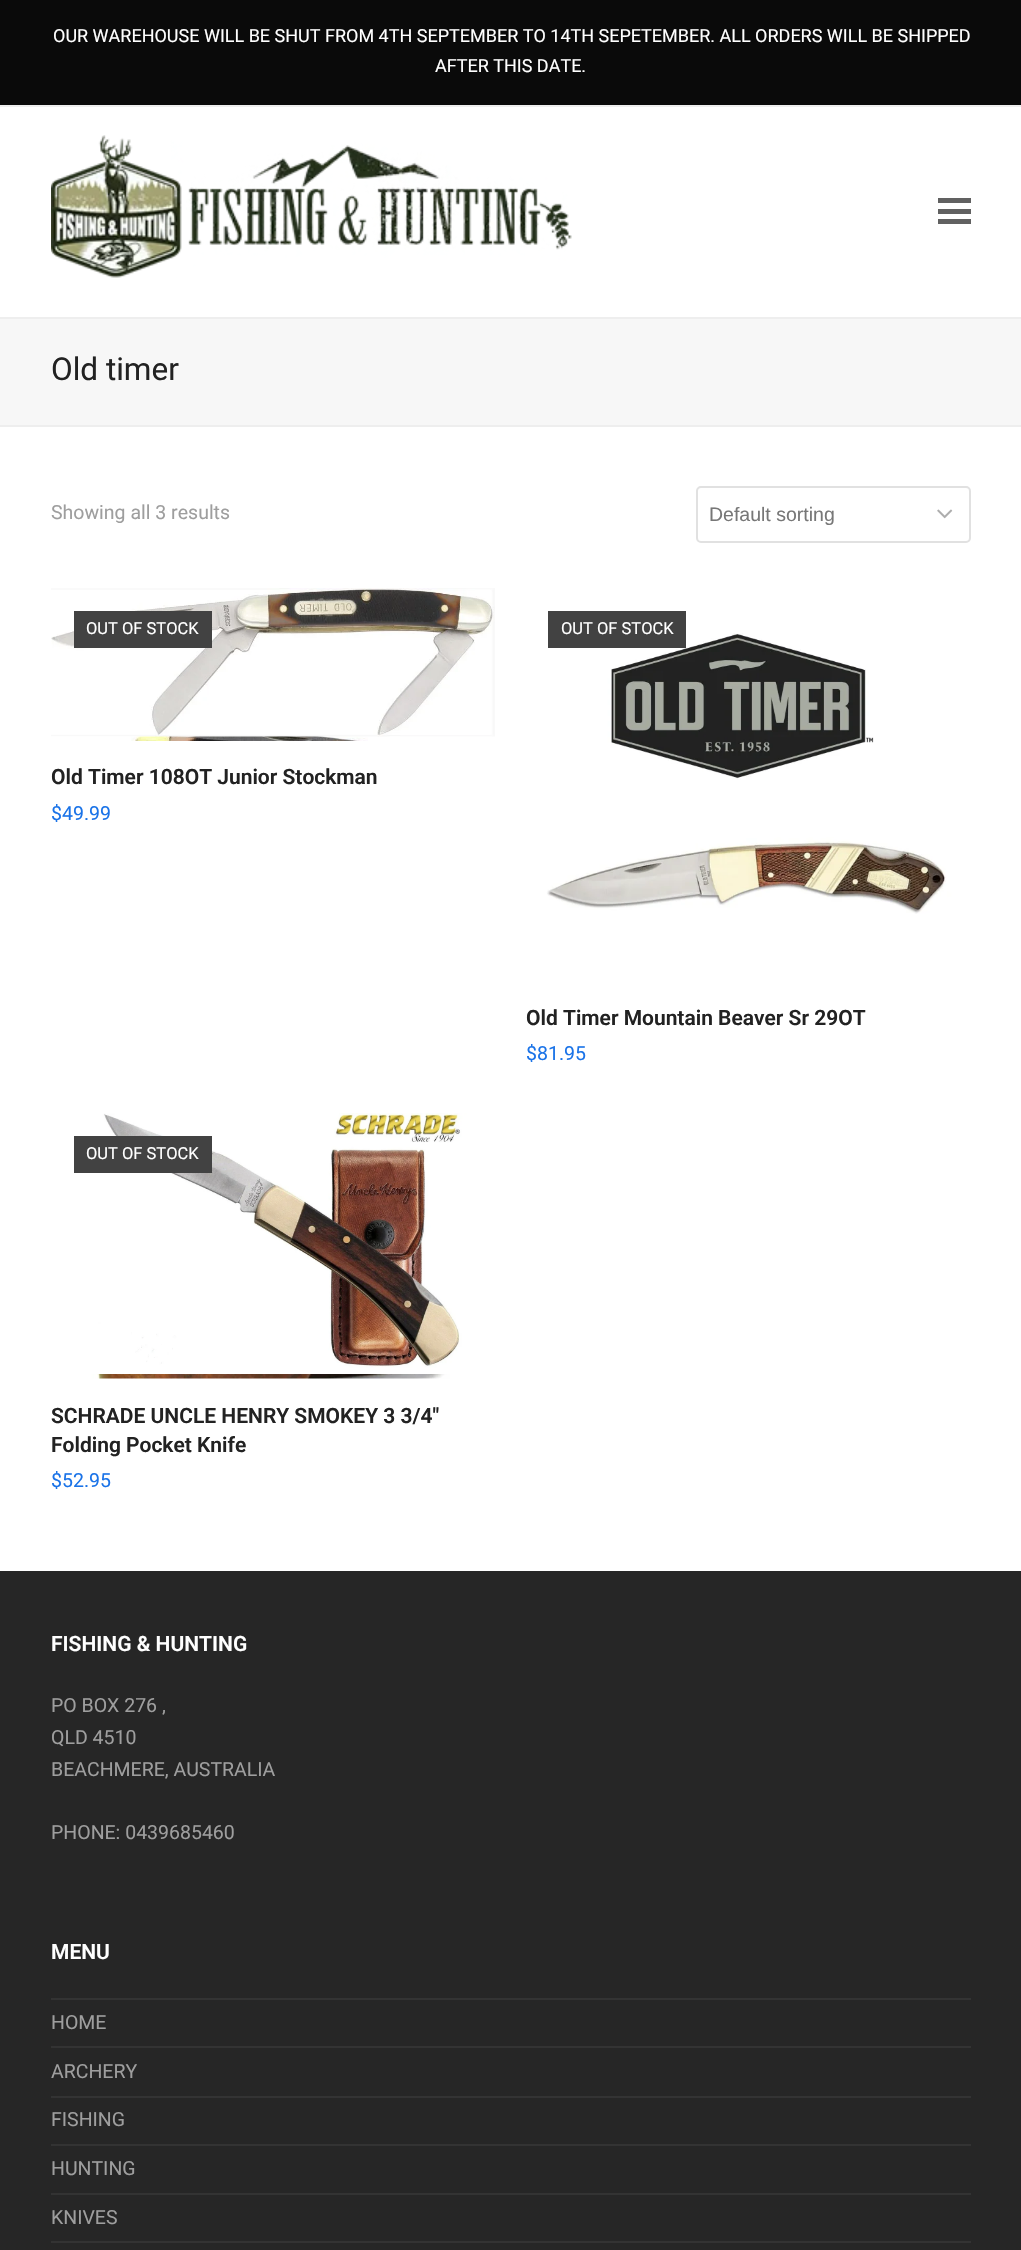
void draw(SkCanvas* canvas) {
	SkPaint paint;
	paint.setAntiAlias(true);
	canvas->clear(0xffffffff);
	paint.setColor(0xff0a0a0a);
	canvas->drawRect(SkRect::MakeXYWH(0, 0, 1021, 105), paint);
	paint.setColor(0xffeeeeee);
	canvas->drawRect(SkRect::MakeXYWH(0, 105, 1021, 2), paint);
	SkFont f1(fontMgr->matchFamilyStyle("Roboto", SkFontStyle::Normal()), 18);
	f1.setSubpixel(true);
	paint.setColor(0xffffffff);
	canvas->drawString("OUR WAREHOUSE WILL BE SHUT FROM 4TH SEPTEMBER TO 14TH SEPETEMBER. ALL ORDERS WILL BE SHIPPED", 53, 42, f1, paint);
	canvas->drawString("AFTER THIS DATE.", 435, 72, f1, paint);
	canvas->drawImageRect(SkImages::DeferredFromEncodedData(SkData::MakeFromFileName("img1.png")), SkRect::MakeXYWH(51, 135, 521, 143), SkSamplingOptions());
	paint.setColor(0xff616161);
	canvas->drawRect(SkRect::MakeXYWH(938, 209, 33, 5), paint);
	canvas->drawRect(SkRect::MakeXYWH(938, 198, 33, 5), paint);
	canvas->drawRect(SkRect::MakeXYWH(938, 219, 33, 5), paint);
	paint.setColor(0xfff7f7f7);
	canvas->drawRect(SkRect::MakeXYWH(0, 319, 1021, 106), paint);
	paint.setColor(0xffeeeeee);
	canvas->drawRect(SkRect::MakeXYWH(0, 317, 1021, 2), paint);
	canvas->drawRect(SkRect::MakeXYWH(0, 425, 1021, 2), paint);
	SkFont f2(fontMgr->matchFamilyStyle("Roboto", SkFontStyle::Normal()), 31.5);
	f2.setSubpixel(true);
	paint.setColor(0xff222222);
	canvas->drawString("Old timer", 51, 380, f2, paint);
	SkFont f3(fontMgr->matchFamilyStyle("Roboto", SkFontStyle::Normal()), 19.5);
	f3.setSubpixel(true);
	paint.setColor(0xff9e9e9e);
	canvas->drawString("Showing all 3 results", 51, 519, f3, paint);
	paint.setStroke(true);
	paint.setStrokeWidth(2);
	paint.setColor(0xffe1e1e1);
	canvas->drawRoundRect(SkRect::MakeXYWH(697, 487, 273, 55), 4, 4, paint);
	SkFont f4(fontMgr->matchFamilyStyle("Liberation Sans", SkFontStyle::Normal()), 19.5);
	f4.setSubpixel(true);
	paint.setStroke(false);
	paint.setColor(0xff777777);
	canvas->drawString("Default sorting", 709, 521, f4, paint);
	canvas->drawImageRect(SkImages::DeferredFromEncodedData(SkData::MakeFromFileName("img2.png")), SkRect::MakeXYWH(937, 509, 16, 10), SkSamplingOptions());
	canvas->drawImageRect(SkImages::DeferredFromEncodedData(SkData::MakeFromFileName("img4.png")), SkRect::MakeXYWH(131, 736, 237, 5), SkSamplingOptions());
	canvas->drawImageRect(SkImages::DeferredFromEncodedData(SkData::MakeFromFileName("img3.png")), SkRect::MakeXYWH(51, 588, 444, 149), SkSamplingOptions());
	paint.setColor(0xff424242);
	canvas->drawRect(SkRect::MakeXYWH(74, 611, 138, 37), paint);
	SkFont f5(fontMgr->matchFamilyStyle("Roboto", SkFontStyle::Normal()), 16.5);
	f5.setSubpixel(true);
	paint.setColor(0xffffffff);
	canvas->drawString("OUT OF STOCK", 86, 634, f5, paint);
	SkFont f6(fontMgr->matchFamilyStyle("Roboto", SkFontStyle(600, SkFontStyle::kNormal_Width, SkFontStyle::kUpright_Slant)), 21);
	f6.setSubpixel(true);
	paint.setColor(0xff222222);
	canvas->drawString("Old Timer 108OT Junior Stockman", 51, 784, f6, paint);
	paint.setColor(0xff1a73e8);
	canvas->drawString("$49.99", 51, 820, f3, paint);
	canvas->drawImageRect(SkImages::DeferredFromEncodedData(SkData::MakeFromFileName("img5.png")), SkRect::MakeXYWH(525, 589, 445, 325), SkSamplingOptions());
	paint.setColor(0xff424242);
	canvas->drawRect(SkRect::MakeXYWH(548, 611, 138, 37), paint);
	paint.setColor(0xffffffff);
	canvas->drawString("OUT OF STOCK", 561, 634, f5, paint);
	paint.setColor(0xff222222);
	canvas->drawString("Old Timer Mountain Beaver Sr 29OT", 526, 1025, f6, paint);
	paint.setColor(0xff1a73e8);
	canvas->drawString("$81.95", 526, 1060, f3, paint);
	canvas->drawImageRect(SkImages::DeferredFromEncodedData(SkData::MakeFromFileName("img6.png")), SkRect::MakeXYWH(90, 1113, 384, 261), SkSamplingOptions());
	canvas->drawImageRect(SkImages::DeferredFromEncodedData(SkData::MakeFromFileName("img7.png")), SkRect::MakeXYWH(90, 1374, 384, 5), SkSamplingOptions());
	paint.setColor(0xff424242);
	canvas->drawRect(SkRect::MakeXYWH(74, 1136, 138, 37), paint);
	paint.setColor(0xffffffff);
	canvas->drawString("OUT OF STOCK", 86, 1159, f5, paint);
	paint.setColor(0xff222222);
	canvas->drawString("SCHRADE UNCLE HENRY SMOKEY 3 3/4″", 51, 1423, f6, paint);
	canvas->drawString("Folding Pocket Knife", 51, 1452, f6, paint);
	paint.setColor(0xff1a73e8);
	canvas->drawString("$52.95", 51, 1487, f3, paint);
	paint.setColor(0xff262626);
	canvas->drawRect(SkRect::MakeXYWH(0, 1571, 1021, 679), paint);
	paint.setColor(0xffffffff);
	canvas->drawString("FISHING & HUNTING", 51, 1651, f6, paint);
	paint.setColor(0xff9e9e9e);
	canvas->drawString("PO BOX 276 ,", 51, 1712, f3, paint);
	canvas->drawString("QLD 4510", 51, 1744, f3, paint);
	canvas->drawString("BEACHMERE, AUSTRALIA", 51, 1776, f3, paint);
	canvas->drawString("PHONE: 0439685460", 51, 1839, f3, paint);
	paint.setColor(0xffffffff);
	canvas->drawString("MENU", 51, 1959, f6, paint);
	paint.setColor(0xff333333);
	canvas->drawRect(SkRect::MakeXYWH(51, 1998, 920, 2), paint);
	canvas->drawRect(SkRect::MakeXYWH(51, 2046, 920, 2), paint);
	paint.setColor(0xff9e9e9e);
	canvas->drawString("HOME", 51, 2029, f3, paint);
	paint.setColor(0xff333333);
	canvas->drawRect(SkRect::MakeXYWH(51, 2096, 920, 2), paint);
	paint.setColor(0xff9e9e9e);
	canvas->drawString("ARCHERY", 51, 2078, f3, paint);
	paint.setColor(0xff333333);
	canvas->drawRect(SkRect::MakeXYWH(51, 2144, 920, 2), paint);
	paint.setColor(0xff9e9e9e);
	canvas->drawString("FISHING", 51, 2126, f3, paint);
	paint.setColor(0xff333333);
	canvas->drawRect(SkRect::MakeXYWH(51, 2193, 920, 2), paint);
	paint.setColor(0xff9e9e9e);
	canvas->drawString("HUNTING", 51, 2175, f3, paint);
	paint.setColor(0xff333333);
	canvas->drawRect(SkRect::MakeXYWH(51, 2241, 920, 2), paint);
	paint.setColor(0xff9e9e9e);
	canvas->drawString("KNIVES", 51, 2224, f3, paint);
}
